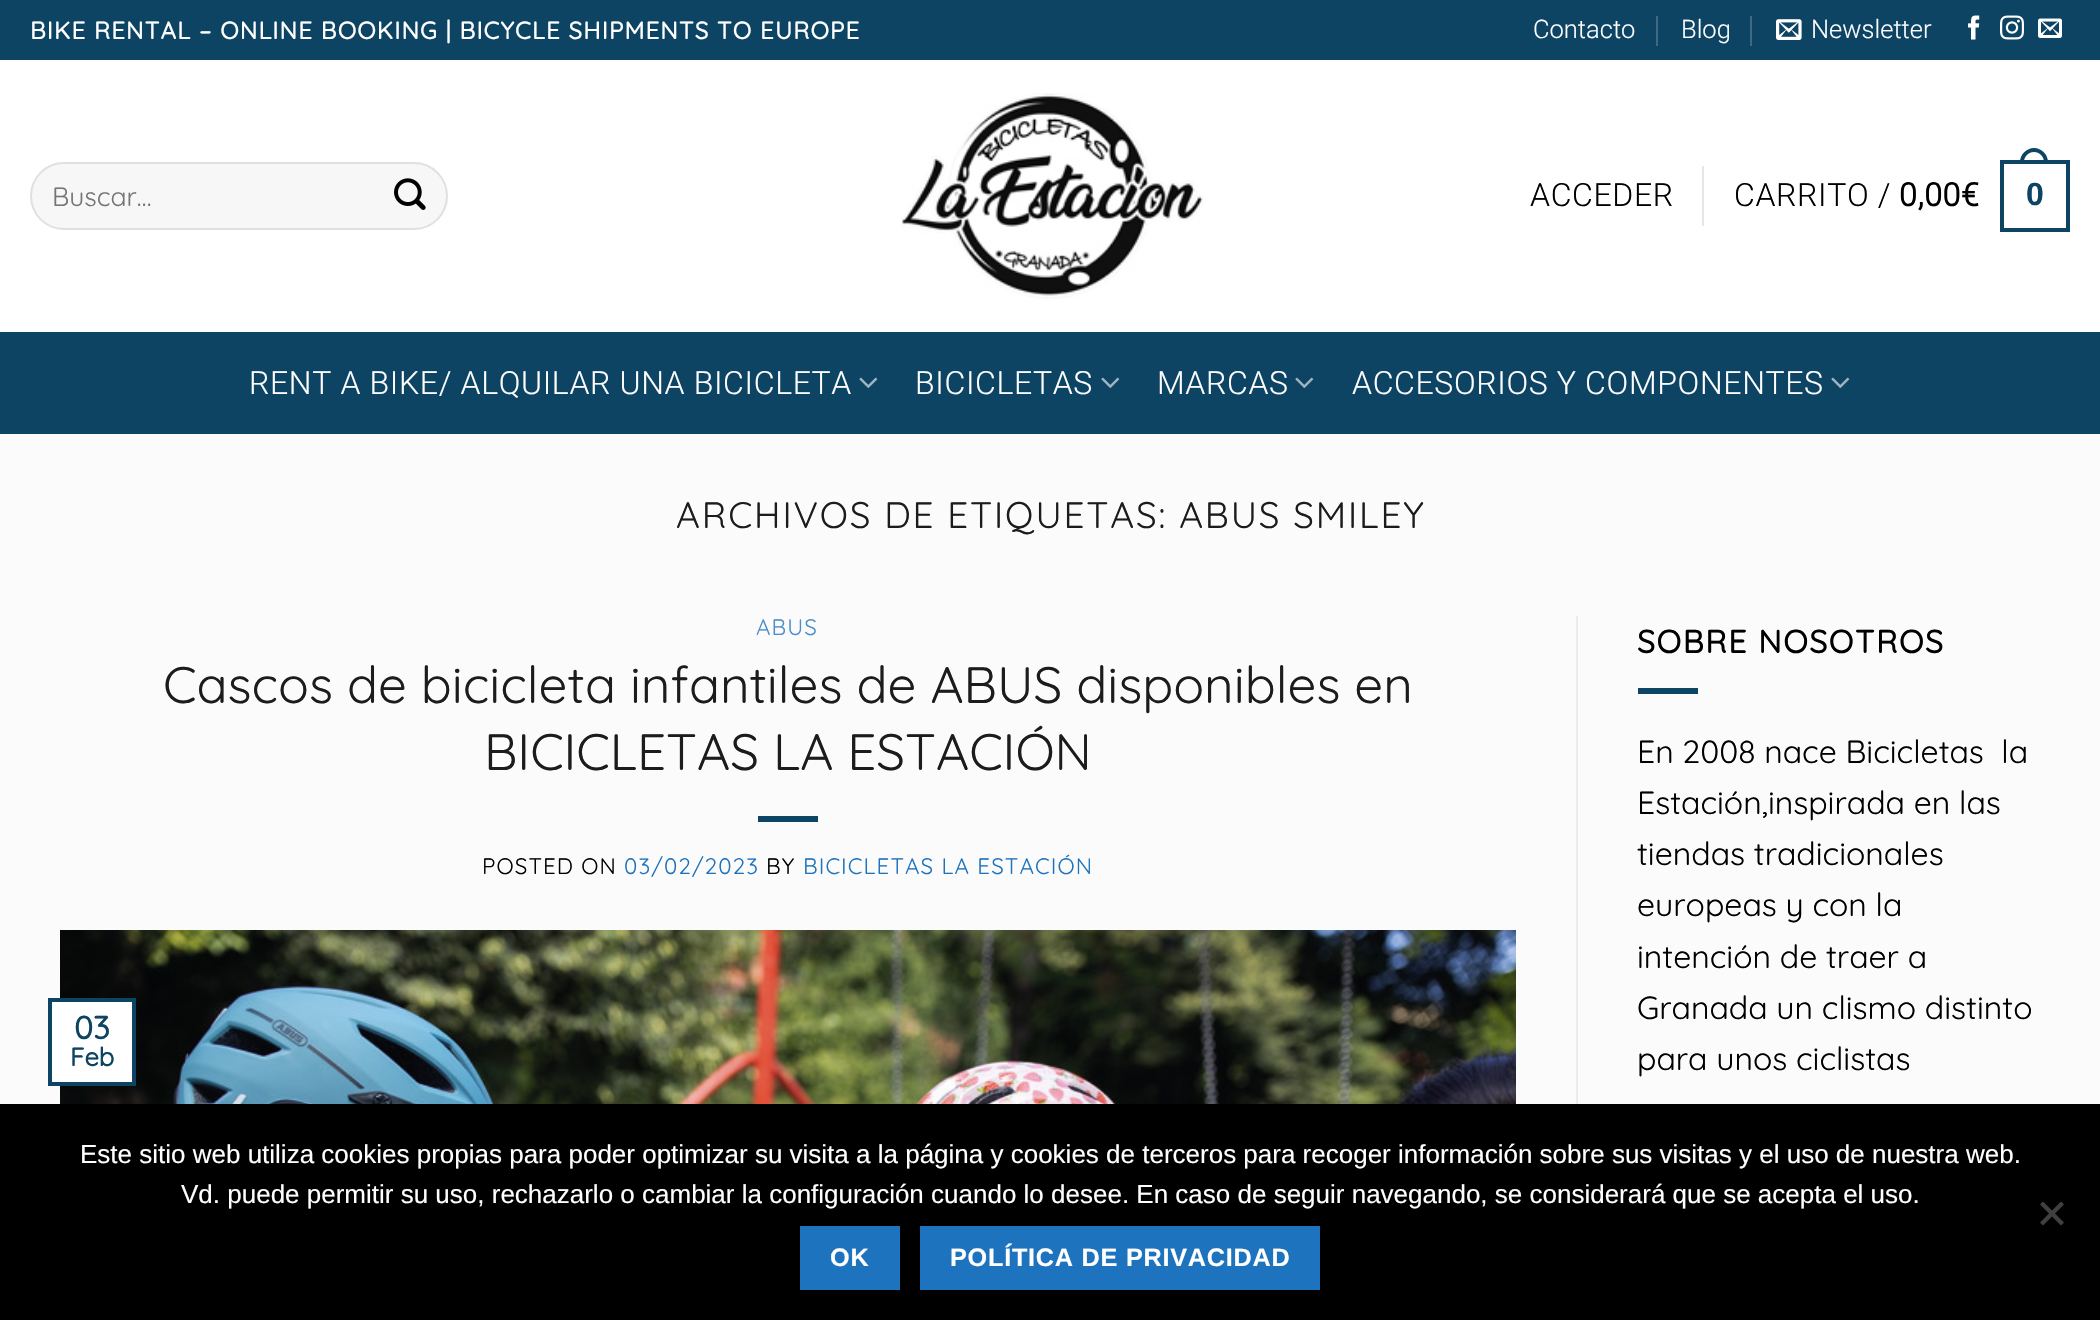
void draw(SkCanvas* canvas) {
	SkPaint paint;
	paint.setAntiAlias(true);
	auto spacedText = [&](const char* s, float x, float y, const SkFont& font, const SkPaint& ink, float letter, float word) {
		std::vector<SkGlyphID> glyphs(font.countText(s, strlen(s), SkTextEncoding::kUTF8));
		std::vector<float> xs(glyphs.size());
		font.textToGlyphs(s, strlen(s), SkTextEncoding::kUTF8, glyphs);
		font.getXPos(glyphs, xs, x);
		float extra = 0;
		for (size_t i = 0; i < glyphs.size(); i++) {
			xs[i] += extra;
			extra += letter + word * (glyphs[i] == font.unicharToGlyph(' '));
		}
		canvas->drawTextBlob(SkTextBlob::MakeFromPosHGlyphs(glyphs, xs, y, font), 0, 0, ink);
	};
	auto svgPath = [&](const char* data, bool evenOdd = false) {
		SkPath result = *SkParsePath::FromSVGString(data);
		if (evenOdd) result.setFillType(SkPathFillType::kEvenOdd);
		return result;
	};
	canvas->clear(0xfffbfbfb);
	paint.setColor(0xff0d4463);
	canvas->drawRect(SkRect::MakeXYWH(0, 0, 2100, 60), paint);
	SkFont f1(fontMgr->matchFamilyStyle("Quicksand", SkFontStyle::Bold()), 24);
	f1.setSubpixel(true);
	paint.setColor(0xffffffff);
	spacedText("BIKE RENTAL – ONLINE BOOKING | BICYCLE SHIPMENTS TO EUROPE", 30, 39, f1, paint, 1.2, 0);
	SkFont f2(fontMgr->matchFamilyStyle("Roboto", SkFontStyle(300, SkFontStyle::kNormal_Width, SkFontStyle::kUpright_Slant)), 25.5);
	f2.setSubpixel(true);
	canvas->drawString("Contacto", 1533, 38, f2, paint);
	paint.setColor(0xff3d6982);
	canvas->drawRect(SkRect::MakeXYWH(1656, 16, 2, 30), paint);
	paint.setColor(0xffffffff);
	canvas->drawString("Blog", 1681, 38, f2, paint);
	paint.setColor(0xff3d6982);
	canvas->drawRect(SkRect::MakeXYWH(1750, 16, 2, 30), paint);
	canvas->drawImageRect(SkImages::DeferredFromEncodedData(SkData::MakeFromFileName("img1.png")), SkRect::MakeXYWH(1776, 19, 26, 21), SkSamplingOptions());
	paint.setColor(0xffffffff);
	canvas->drawString("Newsletter", 1811, 38, f2, paint);
	canvas->drawImageRect(SkImages::DeferredFromEncodedData(SkData::MakeFromFileName("img2.png")), SkRect::MakeXYWH(1968, 15, 12, 25), SkSamplingOptions());
	canvas->drawImageRect(SkImages::DeferredFromEncodedData(SkData::MakeFromFileName("img3.png")), SkRect::MakeXYWH(2000, 15, 24, 25), SkSamplingOptions());
	canvas->drawImageRect(SkImages::DeferredFromEncodedData(SkData::MakeFromFileName("img4.png")), SkRect::MakeXYWH(2038, 18, 24, 20), SkSamplingOptions());
	canvas->drawRect(SkRect::MakeXYWH(0, 60, 2100, 272), paint);
	paint.setColor(0xfff7f7f7);
	canvas->drawRoundRect(SkRect::MakeXYWH(30, 162, 418, 68), 34, 34, paint);
	paint.setStroke(true);
	paint.setStrokeWidth(2);
	paint.setColor(0x17000000);
	canvas->drawRoundRect(SkRect::MakeXYWH(31, 163, 416, 66), 33, 33, paint);
	SkFont f3(fontMgr->matchFamilyStyle("Quicksand", SkFontStyle(300, SkFontStyle::kNormal_Width, SkFontStyle::kUpright_Slant)), 26.5);
	f3.setSubpixel(true);
	paint.setStroke(false);
	paint.setColor(0xff757575);
	canvas->drawString("Buscar…", 52, 206, f3, paint);
	canvas->drawImageRect(SkImages::DeferredFromEncodedData(SkData::MakeFromFileName("img5.png")), SkRect::MakeXYWH(394, 178, 32, 32), SkSamplingOptions());
	canvas->drawImageRect(SkImages::DeferredFromEncodedData(SkData::MakeFromFileName("img6.png")), SkRect::MakeXYWH(901, 93, 303, 206), SkSamplingOptions());
	SkFont f4(fontMgr->matchFamilyStyle("Roboto", SkFontStyle(300, SkFontStyle::kNormal_Width, SkFontStyle::kUpright_Slant)), 32);
	f4.setSubpixel(true);
	paint.setColor(0xff000000);
	spacedText("ACCEDER", 1530, 206, f4, paint, 0.65, 0);
	paint.setColor(0xffe6e6e6);
	canvas->drawRect(SkRect::MakeXYWH(1702, 166, 2, 60), paint);
	paint.setColor(0xff000000);
	spacedText("CARRITO /", 1734, 206, f4, paint, 0.65, 0);
	SkFont f5(fontMgr->matchFamilyStyle("Roboto", SkFontStyle::Bold()), 32);
	f5.setSubpixel(true);
	spacedText("0,00€", 1899, 206, f5, paint, 0.65, 0);
	paint.setStroke(true);
	paint.setStrokeWidth(4);
	paint.setColor(0xff0d4463);
	canvas->drawRect(SkRect::MakeXYWH(2002, 162, 66, 68), paint);
	paint.setStroke(false);
	canvas->drawPath(svgPath("M2034 148C2041.5 148 2048 154.5 2048 162V164H2020V162C2020 154.5 2026.5 148 2034 148ZM2034 152C2039.5 152 2044 156.5 2044 162V164H2024V162C2024 156.5 2028.5 152 2034 152Z", true), paint);
	SkFont f6(fontMgr->matchFamilyStyle("Liberation Sans", SkFontStyle::Bold()), 32);
	f6.setSubpixel(true);
	spacedText("0", 2026, 205, f6, paint, 0.65, 0);
	canvas->drawRect(SkRect::MakeXYWH(0, 332, 2100, 102), paint);
	paint.setColor(0xffffffff);
	spacedText("RENT A BIKE/ ALQUILAR UNA BICICLETA", 249, 394, f4, paint, 0.65, 0);
	canvas->drawImageRect(SkImages::DeferredFromEncodedData(SkData::MakeFromFileName("img7.png")), SkRect::MakeXYWH(859, 377, 19, 11), SkSamplingOptions());
	spacedText("BICICLETAS", 915, 394, f4, paint, 0.65, 0);
	canvas->drawImageRect(SkImages::DeferredFromEncodedData(SkData::MakeFromFileName("img7.png")), SkRect::MakeXYWH(1101, 377, 19, 11), SkSamplingOptions());
	spacedText("MARCAS", 1157, 394, f4, paint, 0.65, 0);
	canvas->drawImageRect(SkImages::DeferredFromEncodedData(SkData::MakeFromFileName("img7.png")), SkRect::MakeXYWH(1295, 377, 19, 11), SkSamplingOptions());
	spacedText("ACCESORIOS Y COMPONENTES", 1352, 394, f4, paint, 0.65, 0);
	canvas->drawImageRect(SkImages::DeferredFromEncodedData(SkData::MakeFromFileName("img7.png")), SkRect::MakeXYWH(1831, 377, 19, 11), SkSamplingOptions());
	SkFont f7(fontMgr->matchFamilyStyle("Quicksand", SkFontStyle(300, SkFontStyle::kNormal_Width, SkFontStyle::kUpright_Slant)), 36.8);
	f7.setSubpixel(true);
	paint.setColor(0xff1c1c1c);
	spacedText("ARCHIVOS DE ETIQUETAS: ABUS SMILEY", 676, 528, f7, paint, 1.85, 0);
	SkFont f8(fontMgr->matchFamilyStyle("Quicksand", SkFontStyle(300, SkFontStyle::kNormal_Width, SkFontStyle::kUpright_Slant)), 22.4);
	f8.setSubpixel(true);
	paint.setColor(0xff4a8eca);
	spacedText("ABUS", 756, 635, f8, paint, 1.1, 0);
	SkFont f9(fontMgr->matchFamilyStyle("Quicksand", SkFontStyle(300, SkFontStyle::kNormal_Width, SkFontStyle::kUpright_Slant)), 51.2);
	f9.setSubpixel(true);
	paint.setColor(0xff1c1c1c);
	canvas->drawString("Cascos de bicicleta infantiles de ABUS disponibles en", 163, 703, f9, paint);
	canvas->drawString("BICICLETAS LA ESTACIÓN", 484, 770, f9, paint);
	paint.setColor(0xff0d4463);
	canvas->drawRect(SkRect::MakeXYWH(758, 816, 60, 6), paint);
	paint.setColor(0xff000000);
	spacedText("POSTED ON", 482, 874, f8, paint, 1.1, 0);
	paint.setColor(0xff1e73be);
	spacedText("03/02/2023", 624, 874, f8, paint, 1.1, 0);
	paint.setColor(0xff000000);
	spacedText("BY", 766, 874, f8, paint, 1.1, 0);
	paint.setColor(0xff1e73be);
	spacedText("BICICLETAS LA ESTACIÓN", 803, 874, f8, paint, 1.1, 0);
	canvas->drawImageRect(SkImages::DeferredFromEncodedData(SkData::MakeFromFileName("img8.png")), SkRect::MakeXYWH(60, 930, 1456, 174), SkSamplingOptions());
	paint.setColor(0xffffffff);
	canvas->drawRect(SkRect::MakeXYWH(50, 1000, 84, 84), paint);
	paint.setStroke(true);
	paint.setColor(0xff0d4463);
	canvas->drawRect(SkRect::MakeXYWH(50, 1000, 84, 84), paint);
	SkFont f10(fontMgr->matchFamilyStyle("Quicksand", SkFontStyle::Bold()), 32);
	f10.setSubpixel(true);
	paint.setStroke(false);
	canvas->drawString("03", 74, 1039, f10, paint);
	SkFont f11(fontMgr->matchFamilyStyle("Quicksand", SkFontStyle::Bold()), 25.5);
	f11.setSubpixel(true);
	canvas->drawString("Feb", 70, 1066, f11, paint);
	paint.setColor(0xffececec);
	canvas->drawRect(SkRect::MakeXYWH(1576, 616, 2, 488), paint);
	paint.setColor(0xff000000);
	spacedText("SOBRE NOSOTROS", 1637, 653, f10, paint, 1.6, 0);
	paint.setColor(0xff0d4463);
	canvas->drawRect(SkRect::MakeXYWH(1638, 688, 60, 6), paint);
	SkFont f12(fontMgr->matchFamilyStyle("Quicksand", SkFontStyle(300, SkFontStyle::kNormal_Width, SkFontStyle::kUpright_Slant)), 32);
	f12.setSubpixel(true);
	paint.setColor(0xff000000);
	canvas->drawString("En 2008 nace Bicicletas  la", 1637, 763, f12, paint);
	canvas->drawString("Estación,inspirada en las", 1637, 814, f12, paint);
	canvas->drawString("tiendas tradicionales", 1637, 865, f12, paint);
	canvas->drawString("europeas y con la", 1637, 916, f12, paint);
	canvas->drawString("intención de traer a", 1637, 968, f12, paint);
	canvas->drawString("Granada un clismo distinto", 1637, 1019, f12, paint);
	canvas->drawString("para unos ciclistas", 1637, 1070, f12, paint);
	canvas->drawRect(SkRect::MakeXYWH(0, 1104, 2100, 216), paint);
	SkFont f13(fontMgr->matchFamilyStyle("Liberation Sans", SkFontStyle::Normal()), 26);
	f13.setSubpixel(true);
	paint.setColor(0xffffffff);
	canvas->drawString("Este sitio web utiliza cookies propias para poder optimizar su visita a la página y cookies de terceros para recoger información sobre sus visitas y el uso de nuestra web.", 80, 1163, f13, paint);
	canvas->drawString("Vd. puede permitir su uso, rechazarlo o cambiar la configuración cuando lo desee. En caso de seguir navegando, se considerará que se acepta el uso.", 181, 1203, f13, paint);
	paint.setColor(0xff404040);
	canvas->drawPath(svgPath("M2061 1201.5L2064 1204.5L2043 1225.5L2040 1222.5Z"), paint);
	canvas->drawPath(svgPath("M2040 1204.5L2043 1201.5L2064 1222.5L2061 1225.5Z"), paint);
	paint.setColor(0xff1e73be);
	canvas->drawRect(SkRect::MakeXYWH(800, 1226, 100, 64), paint);
	SkFont f14(fontMgr->matchFamilyStyle("Liberation Sans", SkFontStyle::Bold()), 25.25);
	f14.setSubpixel(true);
	paint.setColor(0xffffffff);
	spacedText("OK", 830, 1266, f14, paint, 0.75, 0);
	paint.setColor(0xff1e73be);
	canvas->drawRect(SkRect::MakeXYWH(920, 1226, 400, 64), paint);
	paint.setColor(0xffffffff);
	spacedText("POLÍTICA DE PRIVACIDAD", 950, 1266, f14, paint, 0.75, 0);
}
